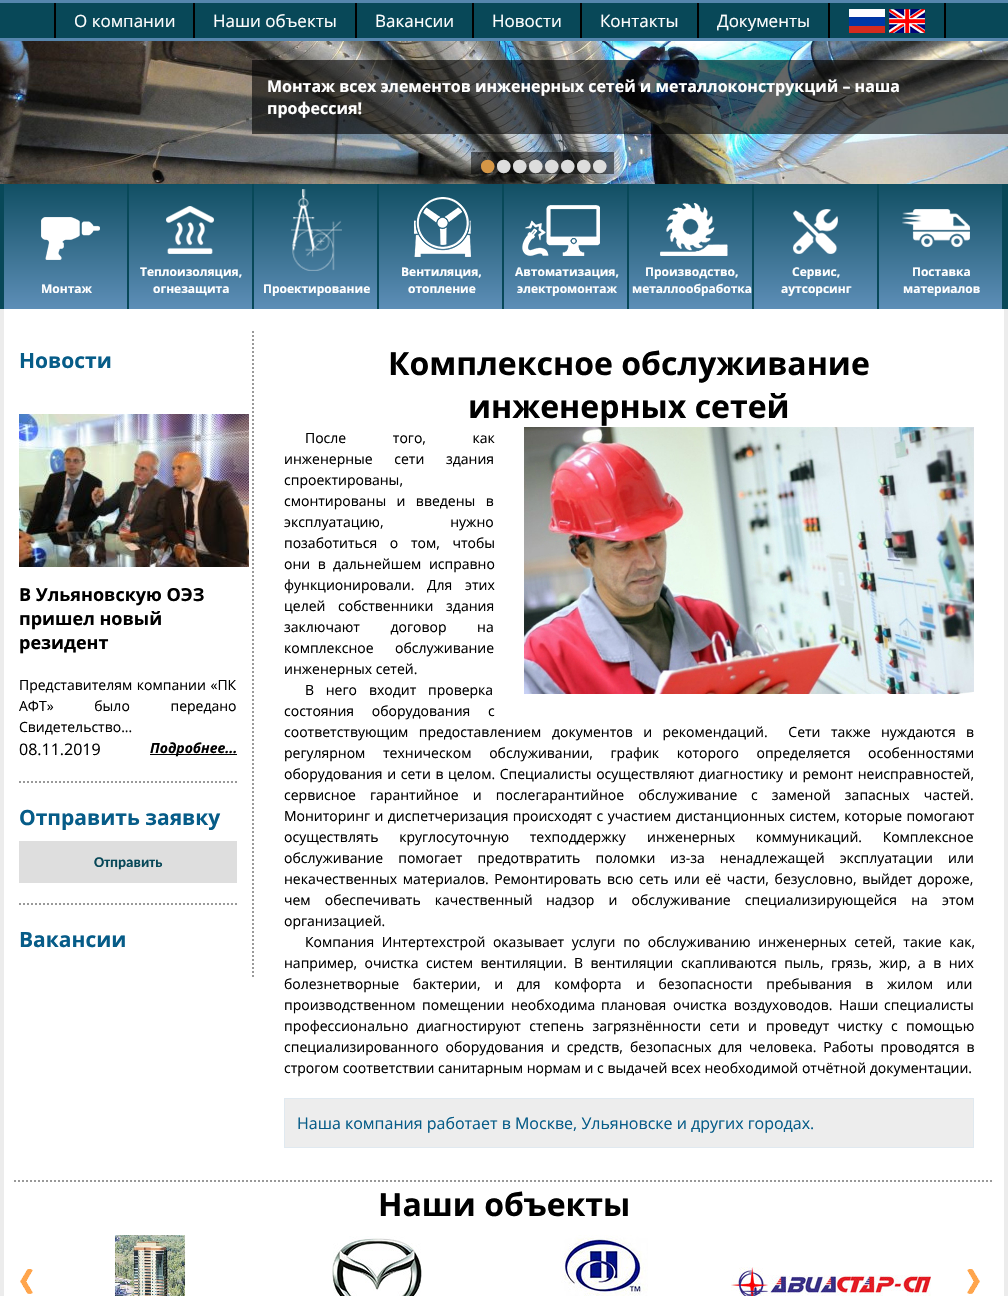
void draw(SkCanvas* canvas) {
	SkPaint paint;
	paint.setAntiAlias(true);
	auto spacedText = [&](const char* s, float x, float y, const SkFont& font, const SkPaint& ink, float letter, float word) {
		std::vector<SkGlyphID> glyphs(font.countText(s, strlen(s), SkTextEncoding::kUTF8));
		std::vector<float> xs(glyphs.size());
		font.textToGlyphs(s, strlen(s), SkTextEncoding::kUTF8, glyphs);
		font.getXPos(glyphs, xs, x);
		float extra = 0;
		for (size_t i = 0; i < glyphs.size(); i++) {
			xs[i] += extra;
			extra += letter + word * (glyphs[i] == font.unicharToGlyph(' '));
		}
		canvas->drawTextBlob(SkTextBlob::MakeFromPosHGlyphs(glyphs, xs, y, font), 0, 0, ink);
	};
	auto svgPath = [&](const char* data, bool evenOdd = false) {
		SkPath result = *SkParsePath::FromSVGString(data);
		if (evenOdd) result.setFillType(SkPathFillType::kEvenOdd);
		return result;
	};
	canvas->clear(0xffececec);
	paint.setColor(0xff084858);
	canvas->drawRect(SkRect::MakeXYWH(0, 3, 1008, 35), paint);
	paint.setColor(0xff5586ad);
	canvas->drawRect(SkRect::MakeXYWH(0, 0, 1008, 3), paint);
	canvas->drawRect(SkRect::MakeXYWH(0, 38, 1008, 3), paint);
	paint.setColor(0xff000000);
	canvas->drawRect(SkRect::MakeXYWH(193, 3, 2, 35), paint);
	canvas->drawRect(SkRect::MakeXYWH(54, 3, 2, 35), paint);
	SkFont f1(fontMgr->matchFamilyStyle("Open Sans", SkFontStyle::Normal()), 17);
	f1.setSubpixel(true);
	paint.setColor(0xffffffff);
	canvas->drawString("О компании", 74, 27, f1, paint);
	paint.setColor(0xff000000);
	canvas->drawRect(SkRect::MakeXYWH(355, 3, 2, 35), paint);
	paint.setColor(0xffffffff);
	canvas->drawString("Наши объекты", 213, 27, f1, paint);
	paint.setColor(0xff000000);
	canvas->drawRect(SkRect::MakeXYWH(472, 3, 2, 35), paint);
	paint.setColor(0xffffffff);
	canvas->drawString("Вакансии", 375, 27, f1, paint);
	paint.setColor(0xff000000);
	canvas->drawRect(SkRect::MakeXYWH(580, 3, 2, 35), paint);
	paint.setColor(0xffffffff);
	canvas->drawString("Новости", 492, 27, f1, paint);
	paint.setColor(0xff000000);
	canvas->drawRect(SkRect::MakeXYWH(697, 3, 2, 35), paint);
	paint.setColor(0xffffffff);
	canvas->drawString("Контакты", 600, 27, f1, paint);
	paint.setColor(0xff000000);
	canvas->drawRect(SkRect::MakeXYWH(828, 3, 2, 35), paint);
	paint.setColor(0xffffffff);
	canvas->drawString("Документы", 717, 27, f1, paint);
	paint.setColor(0xff000000);
	canvas->drawRect(SkRect::MakeXYWH(944, 3, 2, 35), paint);
	canvas->drawImageRect(SkImages::DeferredFromEncodedData(SkData::MakeFromFileName("img1.png")), SkRect::MakeXYWH(849, 9, 36, 24), SkSamplingOptions());
	canvas->drawImageRect(SkImages::DeferredFromEncodedData(SkData::MakeFromFileName("img2.png")), SkRect::MakeXYWH(889, 9, 36, 24), SkSamplingOptions());
	canvas->drawImageRect(SkImages::DeferredFromEncodedData(SkData::MakeFromFileName("img3.png")), SkRect::MakeXYWH(0, 41, 1008, 143), SkSamplingOptions());
	paint.setColor(0x99000000);
	canvas->drawRect(SkRect::MakeXYWH(252, 60, 756, 74), paint);
	SkFont f2(fontMgr->matchFamilyStyle("Open Sans", SkFontStyle::Bold()), 16);
	f2.setSubpixel(true);
	paint.setColor(0xffffffff);
	canvas->drawString("Монтаж всех элементов инженерных сетей и металлоконструкций – наша", 267, 92, f2, paint);
	canvas->drawString("профессия!", 267, 114, f2, paint);
	paint.setColor(0x80000000);
	canvas->drawRect(SkRect::MakeXYWH(471, 152, 143, 22), paint);
	SkFont f3(fontMgr->matchFamilyStyle("Liberation Sans", SkFontStyle::Normal()), 50);
	f3.setSubpixel(true);
	paint.setColor(0xffd69746);
	canvas->drawString("•", 479, 183, f3, paint);
	paint.setColor(0xffdddddd);
	canvas->drawString("•", 495, 183, f3, paint);
	canvas->drawString("•", 511, 183, f3, paint);
	canvas->drawString("•", 527, 183, f3, paint);
	canvas->drawString("•", 543, 183, f3, paint);
	canvas->drawString("•", 559, 183, f3, paint);
	canvas->drawString("•", 575, 183, f3, paint);
	canvas->drawString("•", 591, 183, f3, paint);
	paint.setColor(0xff084858);
	canvas->drawRect(SkRect::MakeXYWH(0, 184, 1008, 125), paint);
	{
		const SkColor colors[] = {0xff5d8eb7, 0xff114f63};
		const float stops[] = {0, 1};
		const SkPoint ends[] = {{504, 309}, {504, 184}};
		paint.setShader(SkGradientShader::MakeLinear(ends, colors, stops, 2, SkTileMode::kClamp));
		paint.setAlpha(255);
	}
	canvas->drawRect(SkRect::MakeXYWH(4, 184, 998, 125), paint);
	canvas->drawImageRect(SkImages::DeferredFromEncodedData(SkData::MakeFromFileName("img4.png")), SkRect::MakeXYWH(41, 217, 59, 43), SkSamplingOptions());
	paint.setShader(nullptr);
	paint.setColor(0xff084858);
	canvas->drawRect(SkRect::MakeXYWH(127, 184, 2, 125), paint);
	SkFont f4(fontMgr->matchFamilyStyle("Open Sans", SkFontStyle::Bold()), 12);
	f4.setSubpixel(true);
	paint.setColor(0xffffffff);
	canvas->drawString("Монтаж", 41, 293, f4, paint);
	canvas->drawImageRect(SkImages::DeferredFromEncodedData(SkData::MakeFromFileName("img5.png")), SkRect::MakeXYWH(166, 206, 48, 48), SkSamplingOptions());
	paint.setColor(0xff084858);
	canvas->drawRect(SkRect::MakeXYWH(252, 184, 2, 125), paint);
	paint.setColor(0xffffffff);
	canvas->drawString("Теплоизоляция,", 140, 276, f4, paint);
	canvas->drawString("огнезащита", 153, 293, f4, paint);
	canvas->drawImageRect(SkImages::DeferredFromEncodedData(SkData::MakeFromFileName("img6.png")), SkRect::MakeXYWH(291, 189, 51, 82), SkSamplingOptions());
	paint.setColor(0xff084858);
	canvas->drawRect(SkRect::MakeXYWH(377, 184, 2, 125), paint);
	paint.setColor(0xffffffff);
	canvas->drawString("Проектирование", 263, 293, f4, paint);
	canvas->drawImageRect(SkImages::DeferredFromEncodedData(SkData::MakeFromFileName("img7.png")), SkRect::MakeXYWH(414, 197, 57, 60), SkSamplingOptions());
	paint.setColor(0xff084858);
	canvas->drawRect(SkRect::MakeXYWH(502, 184, 2, 125), paint);
	paint.setColor(0xffffffff);
	canvas->drawString("Вентиляция,", 401, 276, f4, paint);
	canvas->drawString("отопление", 408, 293, f4, paint);
	canvas->drawImageRect(SkImages::DeferredFromEncodedData(SkData::MakeFromFileName("img8.png")), SkRect::MakeXYWH(522, 205, 78, 51), SkSamplingOptions());
	paint.setColor(0xff084858);
	canvas->drawRect(SkRect::MakeXYWH(627, 184, 2, 125), paint);
	paint.setColor(0xffffffff);
	canvas->drawString("Автоматизация,", 515, 276, f4, paint);
	canvas->drawString("электромонтаж", 517, 293, f4, paint);
	canvas->drawImageRect(SkImages::DeferredFromEncodedData(SkData::MakeFromFileName("img9.png")), SkRect::MakeXYWH(660, 203, 68, 53), SkSamplingOptions());
	paint.setColor(0xff084858);
	canvas->drawRect(SkRect::MakeXYWH(752, 184, 2, 125), paint);
	paint.setColor(0xffffffff);
	canvas->drawString("Производство,", 645, 276, f4, paint);
	canvas->drawString("металлообработка", 632, 293, f4, paint);
	canvas->drawImageRect(SkImages::DeferredFromEncodedData(SkData::MakeFromFileName("img10.png")), SkRect::MakeXYWH(793, 209, 45, 45), SkSamplingOptions());
	paint.setColor(0xff084858);
	canvas->drawRect(SkRect::MakeXYWH(877, 184, 2, 125), paint);
	paint.setColor(0xffffffff);
	canvas->drawString("Сервис,", 792, 276, f4, paint);
	canvas->drawString("аутсорсинг", 781, 293, f4, paint);
	canvas->drawImageRect(SkImages::DeferredFromEncodedData(SkData::MakeFromFileName("img11.png")), SkRect::MakeXYWH(902, 209, 68, 38), SkSamplingOptions());
	canvas->drawString("Поставка", 912, 276, f4, paint);
	canvas->drawString("материалов", 903, 293, f4, paint);
	canvas->drawRect(SkRect::MakeXYWH(4, 309, 1000, 987), paint);
	paint.setStroke(true);
	paint.setStrokeWidth(2);
	paint.setColor(0xff999999);
	paint.setPathEffect(SkDashPathEffect::Make({{2, 2}}, 0));
	canvas->drawPath(svgPath("M253 331V978"), paint);
	paint.setPathEffect(nullptr);
	SkFont f5(fontMgr->matchFamilyStyle("Open Sans", SkFontStyle::Bold()), 21);
	f5.setSubpixel(true);
	paint.setStroke(false);
	paint.setColor(0xff065c88);
	canvas->drawString("Новости", 19, 368, f5, paint);
	canvas->drawImageRect(SkImages::DeferredFromEncodedData(SkData::MakeFromFileName("img12.png")), SkRect::MakeXYWH(19, 414, 230, 153), SkSamplingOptions());
	SkFont f6(fontMgr->matchFamilyStyle("Open Sans", SkFontStyle::Bold()), 18);
	f6.setSubpixel(true);
	paint.setColor(0xff000000);
	canvas->drawString("В Ульяновскую ОЭЗ", 19, 601, f6, paint);
	canvas->drawString("пришел новый", 19, 625, f6, paint);
	canvas->drawString("резидент", 19, 649, f6, paint);
	SkFont f7(fontMgr->matchFamilyStyle("Open Sans", SkFontStyle::Normal()), 14);
	f7.setSubpixel(true);
	spacedText("Представителям компании «ПК", 19, 690, f7, paint, 0, 1);
	spacedText("АФТ» было передано", 19, 711, f7, paint, 0, 37);
	canvas->drawString("Свидетельство...", 19, 732, f7, paint);
	SkFont f8(fontMgr->matchFamilyStyle("Open Sans", SkFontStyle::Normal()), 16);
	f8.setSubpixel(true);
	canvas->drawString("08.11.2019", 19, 755, f8, paint);
	canvas->drawRect(SkRect::MakeXYWH(150, 754, 87, 1), paint);
	SkFont f9(fontMgr->matchFamilyStyle("Open Sans", SkFontStyle::BoldItalic()), 14);
	f9.setSubpixel(true);
	canvas->drawString("Подробнее...", 150, 753, f9, paint);
	paint.setStroke(true);
	paint.setColor(0xff999999);
	paint.setPathEffect(SkDashPathEffect::Make({{2, 2}}, 0));
	canvas->drawPath(svgPath("M19 782H237"), paint);
	paint.setPathEffect(nullptr);
	paint.setStroke(false);
	paint.setColor(0xff065c88);
	canvas->drawString("Отправить заявку", 19, 825, f5, paint);
	paint.setColor(0xffdedede);
	canvas->drawRect(SkRect::MakeXYWH(19, 841, 218, 42), paint);
	SkFont f10(fontMgr->matchFamilyStyle("Carlito", SkFontStyle::Bold()), 15);
	f10.setSubpixel(true);
	paint.setColor(0xff084858);
	canvas->drawString("Отправить", 94, 867, f10, paint);
	paint.setStroke(true);
	paint.setColor(0xff999999);
	paint.setPathEffect(SkDashPathEffect::Make({{2, 2}}, 0));
	canvas->drawPath(svgPath("M19 904H237"), paint);
	paint.setPathEffect(nullptr);
	paint.setStroke(false);
	paint.setColor(0xff065c88);
	canvas->drawString("Вакансии", 19, 947, f5, paint);
	SkFont f11(fontMgr->matchFamilyStyle("Open Sans", SkFontStyle::Bold()), 32);
	f11.setSubpixel(true);
	paint.setColor(0xff000000);
	canvas->drawString("Комплексное обслуживание", 388, 375, f11, paint);
	canvas->drawString("инженерных сетей", 468, 418, f11, paint);
	spacedText("После того, как", 305, 443, f7, paint, 0, 43);
	spacedText("инженерные сети здания", 284, 464, f7, paint, 0, 18);
	canvas->drawString("спроектированы,", 284, 485, f7, paint);
	spacedText("смонтированы и введены в", 284, 506, f7, paint, 0, 6.75);
	spacedText("эксплуатацию, нужно", 284, 527, f7, paint, 0, 63);
	spacedText("позаботиться о том, чтобы", 284, 548, f7, paint, 0, 9);
	spacedText("они в", 284, 569, f7, paint, 0, 4);
	spacedText("дальнейшем исправно", 333, 569, f7, paint, 0, 4);
	spacedText("функционировали. Для этих", 284, 590, f7, paint, 0, 9);
	spacedText("целей собственники здания", 284, 611, f7, paint, 0, 9);
	spacedText("заключают договор на", 284, 632, f7, paint, 0, 27);
	canvas->drawString("комплексное", 284, 653, f7, paint);
	canvas->drawString("обслуживание", 395, 653, f7, paint);
	canvas->drawString("инженерных сетей.", 284, 674, f7, paint);
	canvas->drawImageRect(SkImages::DeferredFromEncodedData(SkData::MakeFromFileName("img13.png")), SkRect::MakeXYWH(524, 427, 450, 267), SkSamplingOptions());
	spacedText("В него", 305, 695, f7, paint, 0, 8);
	spacedText("входит проверка", 369, 695, f7, paint, 0, 8);
	spacedText("состояния оборудования с", 284, 716, f7, paint, 0, 14);
	spacedText("соответствующим предоставлением", 284, 737, f7, paint, 0, 6.75);
	spacedText("документов и рекомендаций.  Сети также", 552, 737, f7, paint, 0, 6.75);
	spacedText("нуждаются в", 881, 737, f7, paint, 0, 6.75);
	spacedText("регулярном техническом обслуживании, график которого определяется", 284, 758, f7, paint, 0, 14);
	canvas->drawString("особенностями", 868, 758, f7, paint);
	spacedText("оборудования и сети в целом. Специалисты осуществляют диагностику", 284, 779, f7, paint, 0, 1);
	spacedText("и ремонт неисправностей,", 789, 779, f7, paint, 0, 1);
	spacedText("сервисное гарантийное и послегарантийное обслуживание", 284, 800, f7, paint, 0, 10.5);
	spacedText("с заменой запасных частей.", 751, 800, f7, paint, 0, 10.5);
	spacedText("Мониторинг и диспетчеризация происходят с участием", 284, 821, f7, paint, 0, 0.75);
	spacedText("дистанционных систем, которые помогают", 676, 821, f7, paint, 0, 0.75);
	spacedText("осуществлять круглосуточную техподдержку", 284, 842, f7, paint, 0, 17);
	spacedText("инженерных коммуникаций. Комплексное", 647, 842, f7, paint, 0, 17);
	spacedText("обслуживание помогает предотвратить поломки", 284, 863, f7, paint, 0, 11.5);
	spacedText("из-за ненадлежащей эксплуатации или", 670, 863, f7, paint, 0, 11.5);
	spacedText("некачественных материалов. Ремонтировать", 284, 884, f7, paint, 0, 2);
	spacedText("всю сеть или её части, безусловно, выйдет дороже,", 607, 884, f7, paint, 0, 2);
	spacedText("чем обеспечивать качественный", 284, 905, f7, paint, 0, 10.5);
	spacedText("надзор и обслуживание специализирующейся на этом", 546, 905, f7, paint, 0, 10.5);
	canvas->drawString("организацией.", 284, 926, f7, paint);
	spacedText("Компания Интертехстрой оказывает услуги по обслуживанию инженерных сетей, такие как,", 305, 947, f7, paint, 0, 4);
	spacedText("например, очистка систем вентиляции. В вентиляции", 284, 968, f7, paint, 0, 3.75);
	spacedText("скапливаются пыль, грязь, жир, а в них", 681, 968, f7, paint, 0, 3.75);
	spacedText("болезнетворные бактерии, и для комфорта", 284, 989, f7, paint, 0, 10);
	spacedText("и безопасности пребывания в жилом или", 636, 989, f7, paint, 0, 10);
	spacedText("производственном помещении необходима", 284, 1010, f7, paint, 0, 3);
	spacedText("плановая очистка воздуховодов. Наши", 601, 1010, f7, paint, 0, 3);
	canvas->drawString("специалисты", 884, 1010, f7, paint);
	spacedText("профессионально диагностируют степень загрязнённости сети и", 284, 1031, f7, paint, 0, 4.75);
	spacedText("проведут чистку с помощью", 766, 1031, f7, paint, 0, 4.75);
	spacedText("специализированного оборудования и средств,", 284, 1052, f7, paint, 0, 3.25);
	spacedText("безопасных для человека. Работы проводятся в", 630, 1052, f7, paint, 0, 3.25);
	canvas->drawString("строгом соответствии санитарным нормам и с выдачей всех необходимой отчётной документации.", 284, 1073, f7, paint);
	paint.setColor(0xffededed);
	canvas->drawRect(SkRect::MakeXYWH(284.5, 1098.5, 689, 49), paint);
	paint.setStroke(true);
	paint.setStrokeWidth(1);
	paint.setColor(0xffe0e9f0);
	canvas->drawRect(SkRect::MakeXYWH(284.5, 1098.5, 689, 49), paint);
	paint.setStroke(false);
	paint.setColor(0xff065c88);
	canvas->drawString("Наша компания работает в Москве, Ульяновске и других городах.", 297, 1129, f8, paint);
	paint.setStroke(true);
	paint.setStrokeWidth(2);
	paint.setColor(0xff999999);
	paint.setPathEffect(SkDashPathEffect::Make({{2, 2}}, 0));
	canvas->drawPath(svgPath("M14 1181H994"), paint);
	paint.setPathEffect(nullptr);
	paint.setStroke(false);
	paint.setColor(0xff000000);
	canvas->drawString("Наши объекты", 378, 1216, f11, paint);
	canvas->drawImageRect(SkImages::DeferredFromEncodedData(SkData::MakeFromFileName("img14.png")), SkRect::MakeXYWH(20, 1269, 13, 25), SkSamplingOptions());
	canvas->drawImageRect(SkImages::DeferredFromEncodedData(SkData::MakeFromFileName("img15.png")), SkRect::MakeXYWH(114, 1235, 72, 61), SkSamplingOptions());
	canvas->drawImageRect(SkImages::DeferredFromEncodedData(SkData::MakeFromFileName("img16.png")), SkRect::MakeXYWH(332, 1236, 90, 60), SkSamplingOptions());
	canvas->drawImageRect(SkImages::DeferredFromEncodedData(SkData::MakeFromFileName("img17.png")), SkRect::MakeXYWH(560, 1235, 88, 61), SkSamplingOptions());
	canvas->drawImageRect(SkImages::DeferredFromEncodedData(SkData::MakeFromFileName("img18.png")), SkRect::MakeXYWH(731, 1267, 200, 29), SkSamplingOptions());
	canvas->drawImageRect(SkImages::DeferredFromEncodedData(SkData::MakeFromFileName("img19.png")), SkRect::MakeXYWH(967, 1269, 13, 25), SkSamplingOptions());
}
